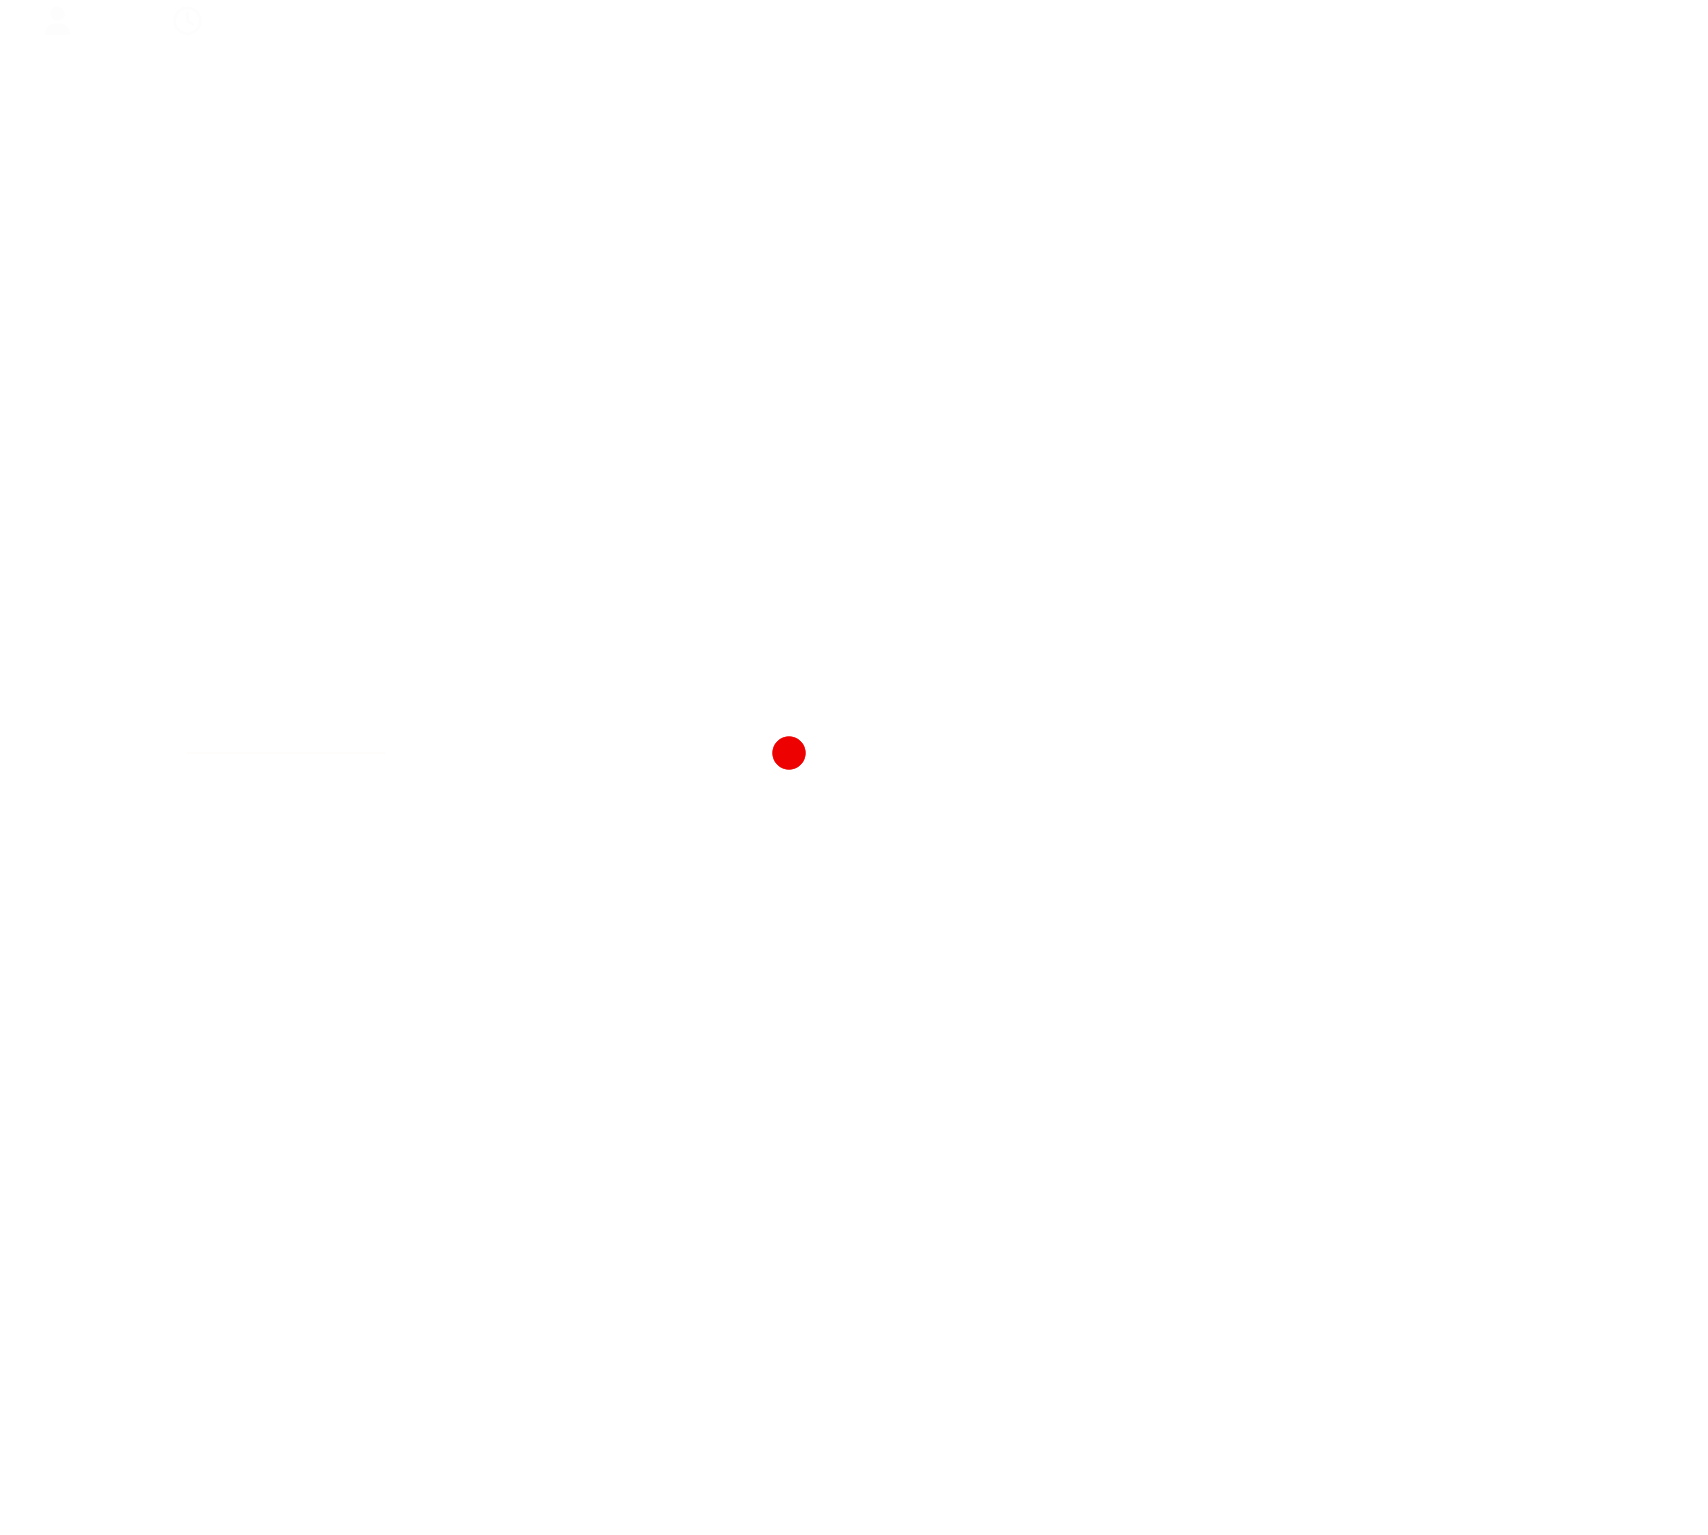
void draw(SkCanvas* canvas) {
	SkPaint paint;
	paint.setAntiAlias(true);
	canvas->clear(0xffffffff);
	canvas->drawImageRect(SkImages::DeferredFromEncodedData(SkData::MakeFromFileName("img1.png")), SkRect::MakeXYWH(45, 6, 25, 30), SkSamplingOptions());
	canvas->drawImageRect(SkImages::DeferredFromEncodedData(SkData::MakeFromFileName("img2.png")), SkRect::MakeXYWH(173, 6, 29, 30), SkSamplingOptions());
	paint.setColor(0xfffffcfc);
	canvas->drawRect(SkRect::MakeXYWH(187, 752, 198, 2), paint);
	{
		const SkColor colors[] = {0xffed0606, 0xffffffff};
		const float stops[] = {0.9, 1};
		paint.setShader(SkGradientShader::MakeRadial({789, 753}, 17, colors, stops, 2, SkTileMode::kClamp));
		paint.setAlpha(255);
	}
	canvas->drawRect(SkRect::MakeXYWH(772, 736, 34, 34), paint);
	{
		const SkColor colors[] = {0xfaed0000, 0x00ed0000};
		const float stops[] = {0.9, 1};
		paint.setShader(SkGradientShader::MakeRadial({789, 753}, 17, colors, stops, 2, SkTileMode::kClamp));
		paint.setAlpha(255);
	}
	canvas->drawRect(SkRect::MakeXYWH(772, 736, 34, 34), paint);
	canvas->drawRect(SkRect::MakeXYWH(772, 736, 34, 34), paint);
	canvas->drawRect(SkRect::MakeXYWH(772, 736, 34, 34), paint);
}
